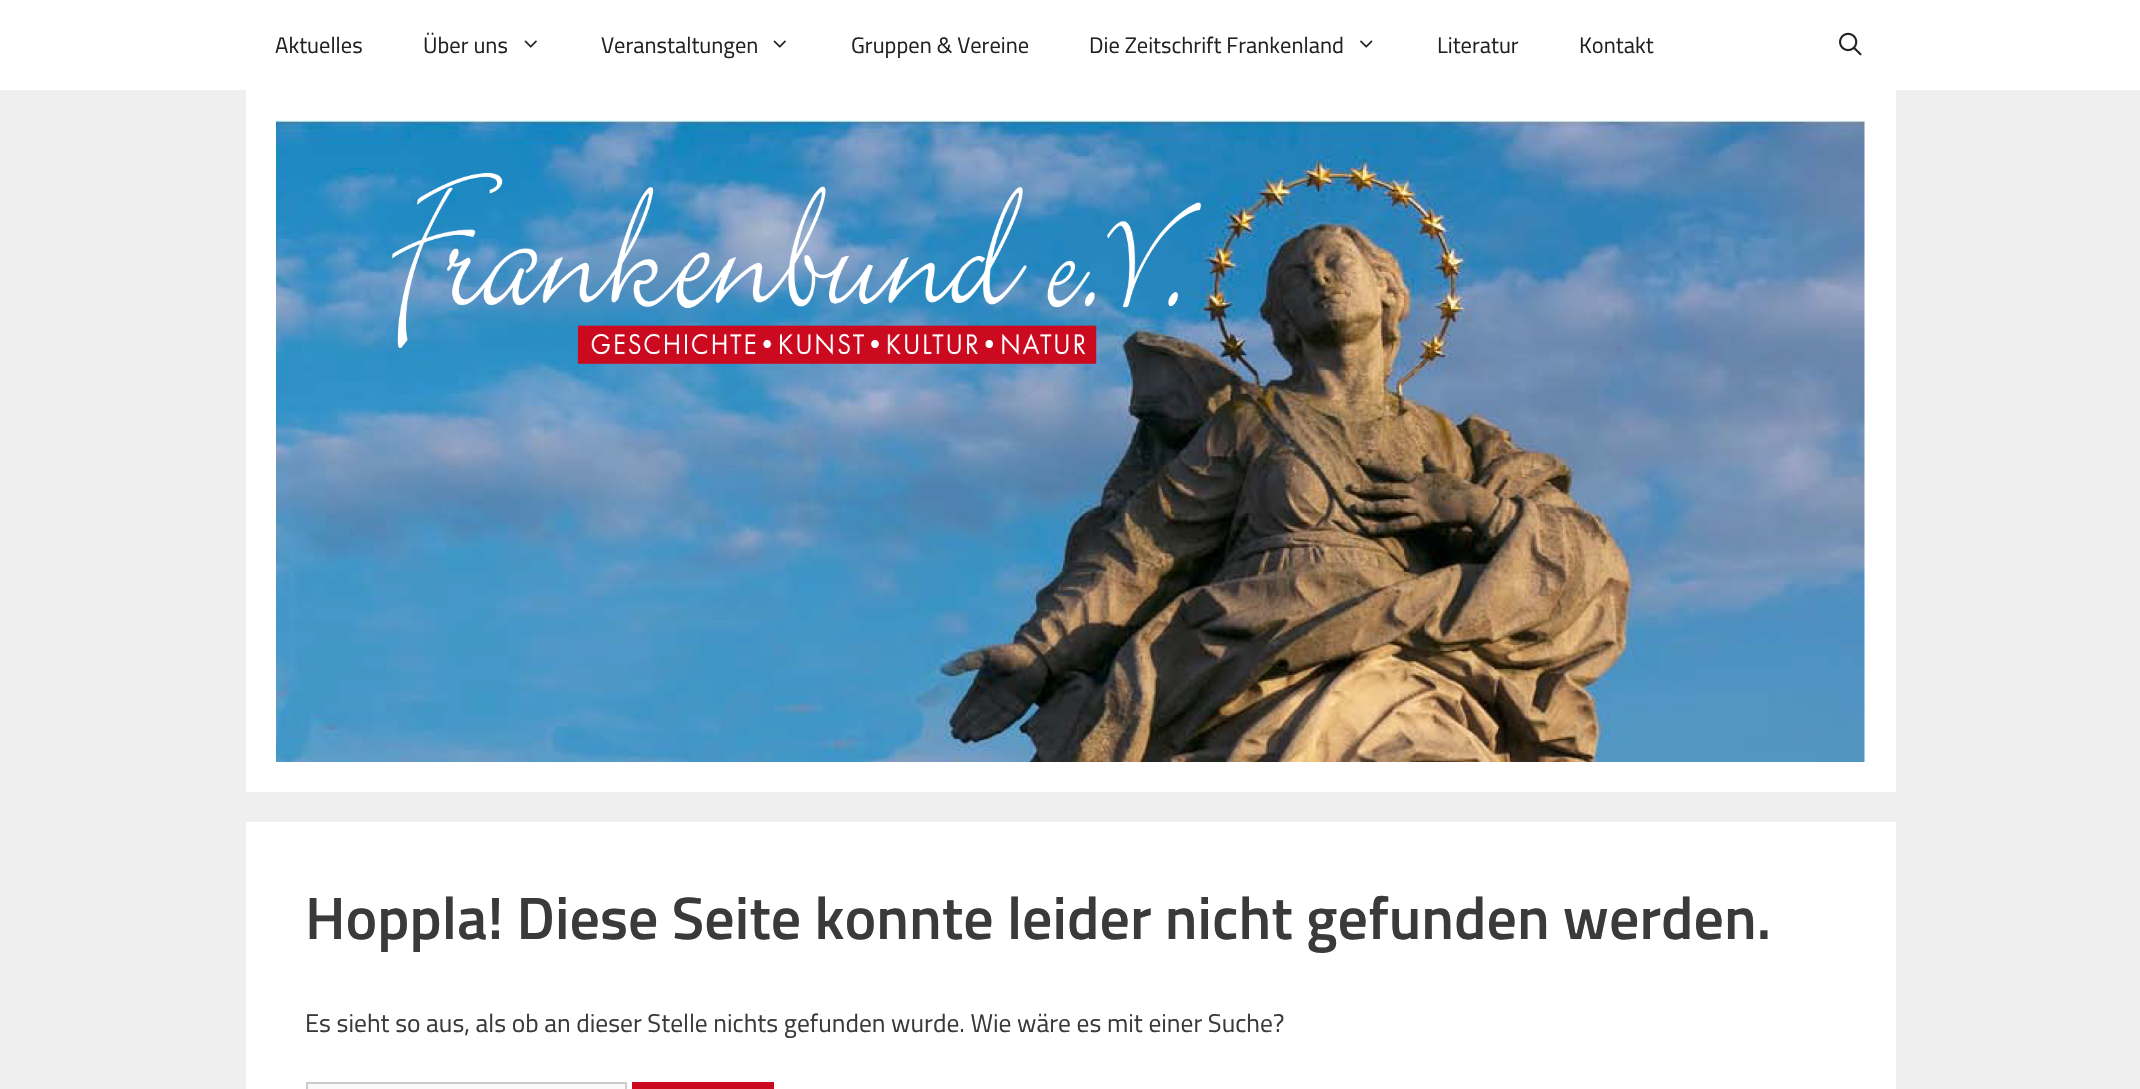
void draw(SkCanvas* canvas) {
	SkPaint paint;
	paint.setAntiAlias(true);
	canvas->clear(0xffefefef);
	paint.setColor(0xffffffff);
	canvas->drawRect(SkRect::MakeXYWH(0, 0, 2140, 90), paint);
	SkFont f1(fontMgr->matchFamilyStyle("Titillium Web", SkFontStyle::Normal()), 22.5);
	f1.setSubpixel(true);
	paint.setColor(0xff222222);
	canvas->drawString("Aktuelles", 275, 53, f1, paint);
	canvas->drawString("Über uns", 423, 53, f1, paint);
	canvas->drawImageRect(SkImages::DeferredFromEncodedData(SkData::MakeFromFileName("img1.png")), SkRect::MakeXYWH(524, 40, 13, 8), SkSamplingOptions());
	canvas->drawString("Veranstaltungen", 601, 53, f1, paint);
	canvas->drawImageRect(SkImages::DeferredFromEncodedData(SkData::MakeFromFileName("img1.png")), SkRect::MakeXYWH(773, 40, 13, 8), SkSamplingOptions());
	canvas->drawString("Gruppen & Vereine", 851, 53, f1, paint);
	canvas->drawString("Die Zeitschrift Frankenland", 1089, 53, f1, paint);
	canvas->drawImageRect(SkImages::DeferredFromEncodedData(SkData::MakeFromFileName("img2.png")), SkRect::MakeXYWH(1360, 40, 13, 8), SkSamplingOptions());
	canvas->drawString("Literatur", 1437, 53, f1, paint);
	canvas->drawString("Kontakt", 1579, 53, f1, paint);
	canvas->drawImageRect(SkImages::DeferredFromEncodedData(SkData::MakeFromFileName("img3.png")), SkRect::MakeXYWH(1839, 32, 23, 24), SkSamplingOptions());
	paint.setColor(0xffffffff);
	canvas->drawRect(SkRect::MakeXYWH(246, 90, 1650, 702), paint);
	canvas->drawImageRect(SkImages::DeferredFromEncodedData(SkData::MakeFromFileName("img4.png")), SkRect::MakeXYWH(276, 120, 1589, 642), SkSamplingOptions());
	canvas->drawRect(SkRect::MakeXYWH(246, 822, 1650, 267), paint);
	SkFont f2(fontMgr->matchFamilyStyle("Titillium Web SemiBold", SkFontStyle(600, SkFontStyle::kNormal_Width, SkFontStyle::kUpright_Slant)), 60);
	f2.setSubpixel(true);
	paint.setColor(0xff3a3a3a);
	canvas->drawString("Hoppla! Diese Seite konnte leider nicht gefunden werden.", 305, 939, f2, paint);
	SkFont f3(fontMgr->matchFamilyStyle("Titillium Web", SkFontStyle::Normal()), 25.5);
	f3.setSubpixel(true);
	canvas->drawString("Es sieht so aus, als ob an dieser Stelle nichts gefunden wurde. Wie wäre es mit einer Suche?", 305, 1032, f3, paint);
	paint.setColor(0xfffafafa);
	canvas->drawRect(SkRect::MakeXYWH(307, 1083, 319, 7), paint);
	paint.setStroke(true);
	paint.setStrokeWidth(2);
	paint.setColor(0xffcccccc);
	canvas->drawRect(SkRect::MakeXYWH(307, 1083, 319, 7), paint);
	paint.setStroke(false);
	paint.setColor(0xffcb091f);
	canvas->drawRect(SkRect::MakeXYWH(632, 1082, 142, 7), paint);
}
